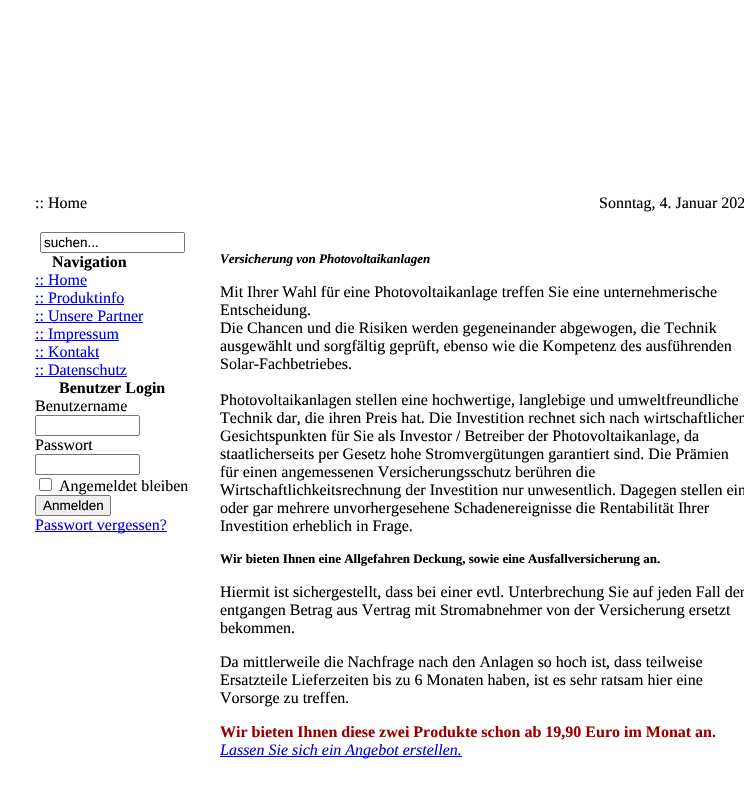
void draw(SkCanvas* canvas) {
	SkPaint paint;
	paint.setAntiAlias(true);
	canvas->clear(0xffffffff);
	SkFont f1(fontMgr->matchFamilyStyle("Liberation Serif", SkFontStyle::Normal()), 16);
	f1.setSubpixel(true);
	paint.setColor(0xff000000);
	canvas->drawString(":: Home", 35, 208, f1, paint);
	canvas->drawString("Sonntag, 4. Januar 202", 599, 208, f1, paint);
	paint.setStroke(true);
	paint.setStrokeWidth(1);
	paint.setColor(0xff767676);
	canvas->drawRoundRect(SkRect::MakeXYWH(40.5, 232.5, 144, 20), 1.5, 1.5, paint);
	SkFont f2(fontMgr->matchFamilyStyle("Liberation Sans", SkFontStyle::Normal()), 13.5);
	f2.setSubpixel(true);
	paint.setStroke(false);
	paint.setColor(0xff000000);
	canvas->drawString("suchen...", 44, 247, f2, paint);
	SkFont f3(fontMgr->matchFamilyStyle("Liberation Serif", SkFontStyle::Bold()), 16);
	f3.setSubpixel(true);
	canvas->drawString("Navigation", 52, 267, f3, paint);
	paint.setColor(0xff0000ee);
	canvas->drawString(":: Home", 35, 285, f1, paint);
	canvas->drawRect(SkRect::MakeXYWH(35, 286, 52, 1), paint);
	canvas->drawString(":: Produktinfo", 35, 303, f1, paint);
	canvas->drawRect(SkRect::MakeXYWH(35, 304, 89, 1), paint);
	canvas->drawString(":: Unsere Partner", 35, 321, f1, paint);
	canvas->drawRect(SkRect::MakeXYWH(35, 322, 108, 1), paint);
	canvas->drawRect(SkRect::MakeXYWH(35, 340, 84, 1), paint);
	canvas->drawString(":: Impressum", 35, 339, f1, paint);
	canvas->drawString(":: Kontakt", 35, 357, f1, paint);
	canvas->drawRect(SkRect::MakeXYWH(35, 358, 64, 1), paint);
	canvas->drawString(":: Datenschutz", 35, 375, f1, paint);
	canvas->drawRect(SkRect::MakeXYWH(35, 376, 92, 1), paint);
	paint.setColor(0xff000000);
	canvas->drawString("Benutzer Login", 59, 393, f3, paint);
	canvas->drawString("Benutzername", 35, 411, f1, paint);
	paint.setStroke(true);
	paint.setColor(0xff767676);
	canvas->drawRoundRect(SkRect::MakeXYWH(35.5, 415.5, 104, 20), 1.5, 1.5, paint);
	paint.setStroke(false);
	paint.setColor(0xff000000);
	canvas->drawString("Passwort", 35, 450, f1, paint);
	paint.setStroke(true);
	paint.setColor(0xff767676);
	canvas->drawRoundRect(SkRect::MakeXYWH(35.5, 454.5, 104, 20), 1.5, 1.5, paint);
	canvas->drawRoundRect(SkRect::MakeXYWH(39.5, 478.5, 12, 12), 1.5, 1.5, paint);
	paint.setStroke(false);
	paint.setColor(0xff000000);
	canvas->drawString("Angemeldet bleiben", 59, 491, f1, paint);
	paint.setColor(0xffefefef);
	canvas->drawRoundRect(SkRect::MakeXYWH(35.5, 495.5, 75, 20), 1.5, 1.5, paint);
	paint.setStroke(true);
	paint.setColor(0xff767676);
	canvas->drawRoundRect(SkRect::MakeXYWH(35.5, 495.5, 75, 20), 1.5, 1.5, paint);
	paint.setStroke(false);
	paint.setColor(0xff000000);
	canvas->drawString("Anmelden", 43, 510, f2, paint);
	paint.setColor(0xff0000ee);
	canvas->drawRect(SkRect::MakeXYWH(35, 531, 132, 1), paint);
	canvas->drawString("Passwort vergessen?", 35, 530, f1, paint);
	SkFont f4(fontMgr->matchFamilyStyle("Liberation Serif", SkFontStyle::BoldItalic()), 13);
	f4.setSubpixel(true);
	paint.setColor(0xff000000);
	canvas->drawString("Versicherung von Photovoltaikanlagen", 220, 263, f4, paint);
	canvas->drawString("Mit Ihrer Wahl für eine Photovoltaikanlage treffen Sie eine unternehmerische", 220, 297, f1, paint);
	canvas->drawString("Entscheidung.", 220, 315, f1, paint);
	canvas->drawString("Die Chancen und die Risiken werden gegeneinander abgewogen, die Technik", 220, 333, f1, paint);
	canvas->drawString("ausgewählt und sorgfältig geprüft, ebenso wie die Kompetenz des ausführenden", 220, 351, f1, paint);
	canvas->drawString("Solar-Fachbetriebes.", 220, 369, f1, paint);
	canvas->drawString("Photovoltaikanlagen stellen eine hochwertige, langlebige und umweltfreundliche", 220, 405, f1, paint);
	canvas->drawString("Technik dar, die ihren Preis hat. Die Investition rechnet sich nach wirtschaftlichen", 220, 423, f1, paint);
	canvas->drawString("Gesichtspunkten für Sie als Investor / Betreiber der Photovoltaikanlage, da", 220, 441, f1, paint);
	canvas->drawString("staatlicherseits per Gesetz hohe Stromvergütungen garantiert sind. Die Prämien", 220, 459, f1, paint);
	canvas->drawString("für einen angemessenen Versicherungsschutz berühren die", 220, 477, f1, paint);
	canvas->drawString("Wirtschaftlichkeitsrechnung der Investition nur unwesentlich. Dagegen stellen ein", 220, 495, f1, paint);
	canvas->drawString("oder gar mehrere unvorhergesehene Schadenereignisse die Rentabilität Ihrer", 220, 513, f1, paint);
	canvas->drawString("Investition erheblich in Frage.", 220, 531, f1, paint);
	SkFont f5(fontMgr->matchFamilyStyle("Liberation Serif", SkFontStyle::Bold()), 13);
	f5.setSubpixel(true);
	canvas->drawString("Wir bieten Ihnen eine Allgefahren Deckung, sowie eine Ausfallversicherung an.", 220, 563, f5, paint);
	canvas->drawString("Hiermit ist sichergestellt, dass bei einer evtl. Unterbrechung Sie auf jeden Fall den", 220, 597, f1, paint);
	canvas->drawString("entgangen Betrag aus Vertrag mit Stromabnehmer von der Versicherung ersetzt", 220, 615, f1, paint);
	canvas->drawString("bekommen.", 220, 633, f1, paint);
	canvas->drawString("Da mittlerweile die Nachfrage nach den Anlagen so hoch ist, dass teilweise", 220, 667, f1, paint);
	canvas->drawString("Ersatzteile Lieferzeiten bis zu 6 Monaten haben, ist es sehr ratsam hier eine", 220, 685, f1, paint);
	canvas->drawString("Vorsorge zu treffen.", 220, 703, f1, paint);
	paint.setColor(0xff990000);
	canvas->drawString("Wir bieten Ihnen diese zwei Produkte schon ab 19,90 Euro im Monat an.", 220, 737, f3, paint);
	paint.setColor(0xff0000ee);
	canvas->drawRect(SkRect::MakeXYWH(220, 756, 242, 1), paint);
	SkFont f6(fontMgr->matchFamilyStyle("Liberation Serif", SkFontStyle::Italic()), 16);
	f6.setSubpixel(true);
	canvas->drawString("Lassen Sie sich ein Angebot erstellen.", 220, 755, f6, paint);
}
